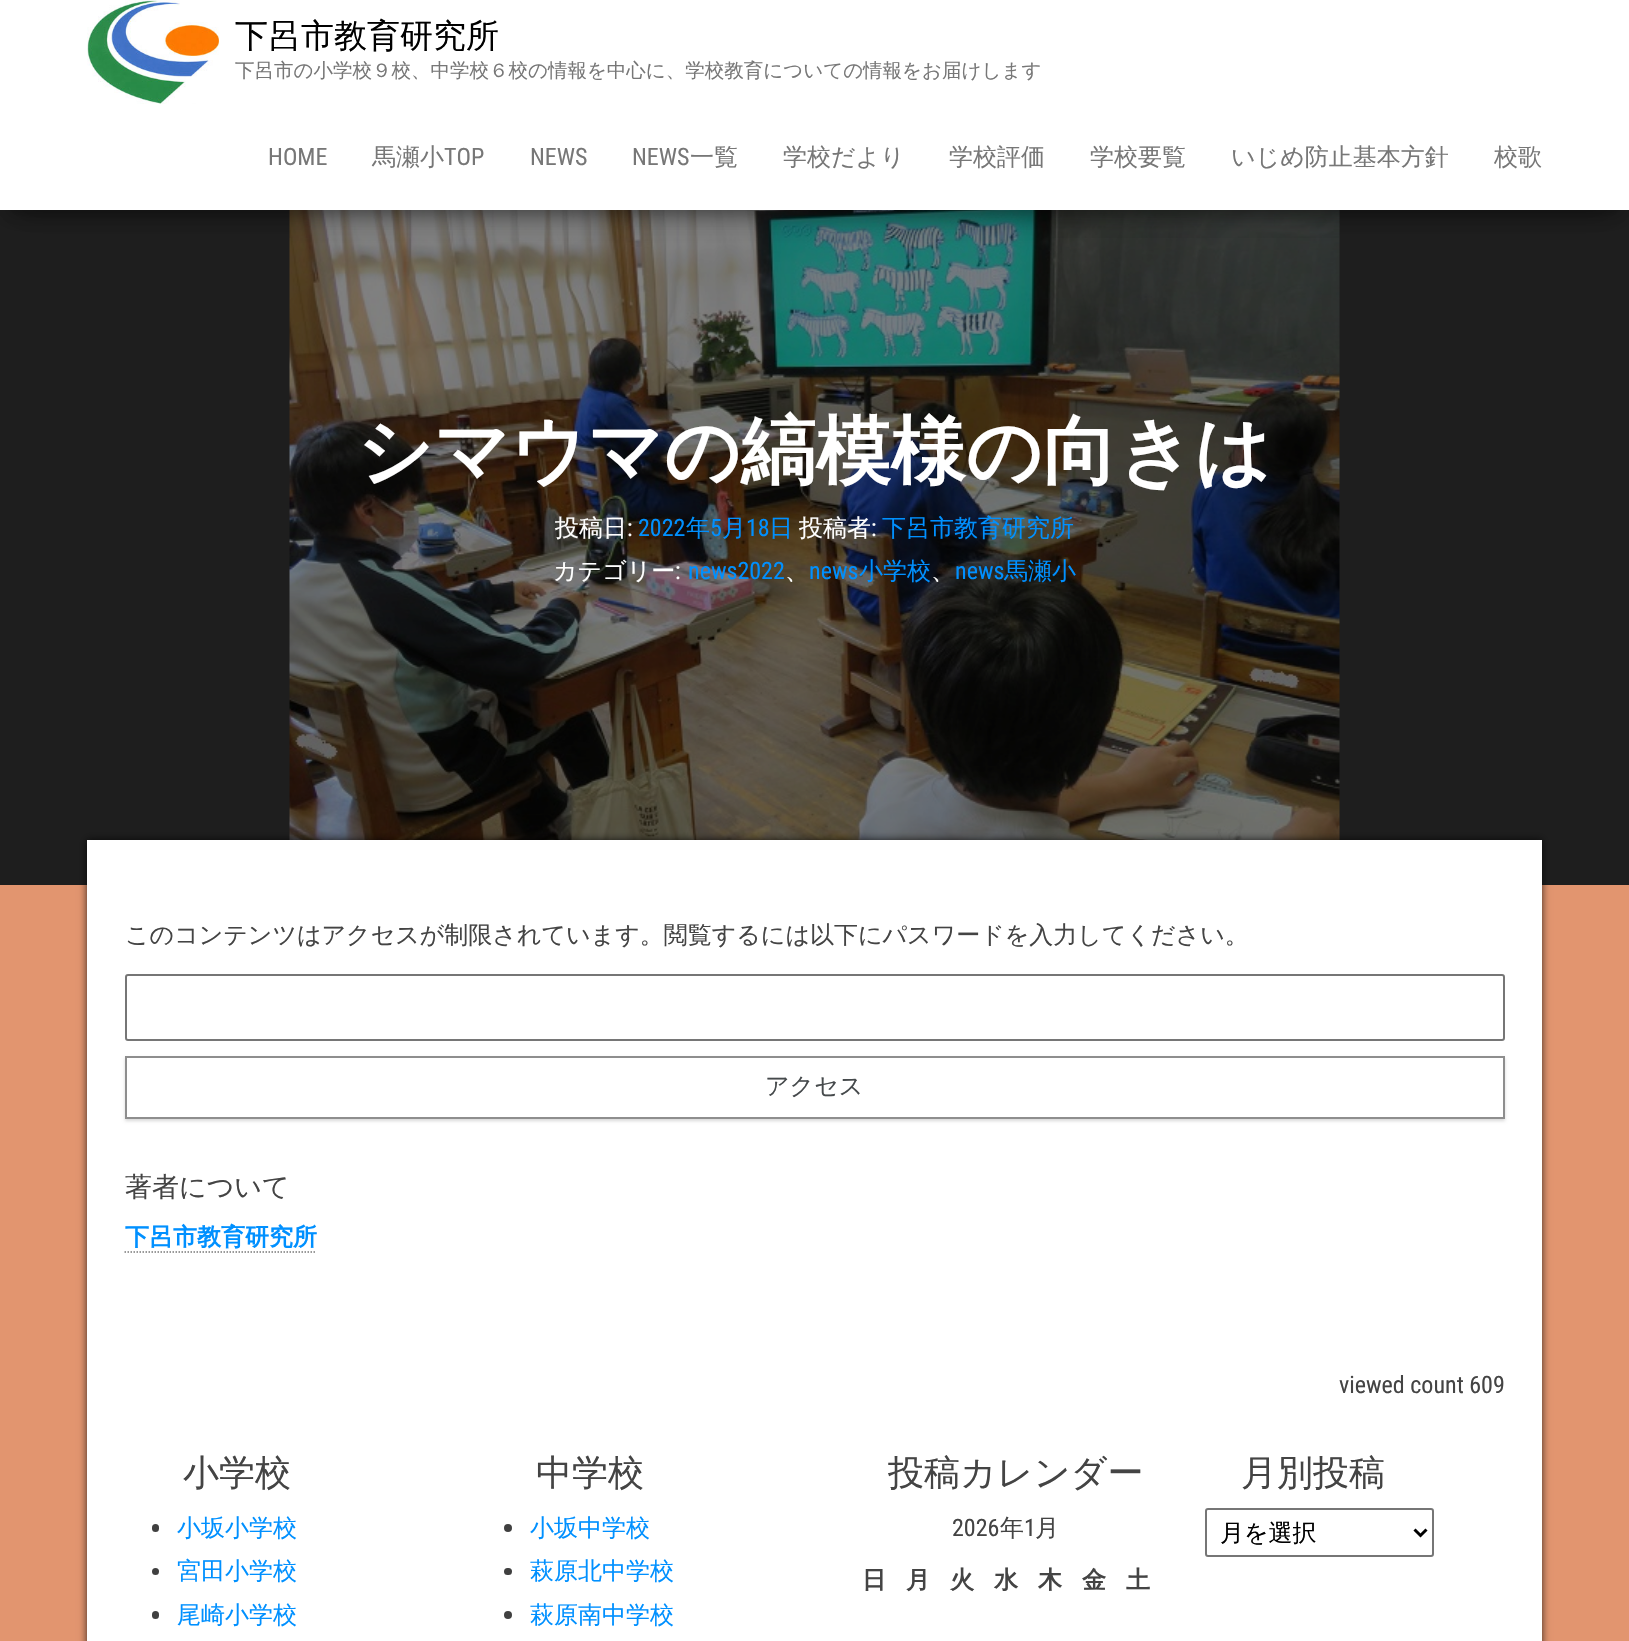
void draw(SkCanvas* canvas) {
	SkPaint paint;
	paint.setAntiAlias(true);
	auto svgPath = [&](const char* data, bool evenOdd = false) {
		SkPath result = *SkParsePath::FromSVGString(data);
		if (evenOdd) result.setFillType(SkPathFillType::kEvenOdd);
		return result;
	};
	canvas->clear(0xffe2956f);
	paint.setColor(0xff1e1e1e);
	canvas->drawRect(SkRect::MakeXYWH(0, 210, 1629, 675), paint);
	canvas->drawImageRect(SkImages::DeferredFromEncodedData(SkData::MakeFromFileName("img2.png")), SkRect::MakeXYWH(289, 210, 1051, 630), SkSamplingOptions());
	paint.setColor(0x33000000);
	paint.setMaskFilter(SkMaskFilter::MakeBlur(kNormal_SkBlurStyle, 7.5));
	canvas->drawRect(SkRect::MakeXYWH(8, 20, 1614, 195), paint);
	paint.setMaskFilter(nullptr);
	paint.setColor(0x1f000000);
	paint.setMaskFilter(SkMaskFilter::MakeBlur(kNormal_SkBlurStyle, 15));
	canvas->drawRect(SkRect::MakeXYWH(0, 5, 1629, 210), paint);
	paint.setMaskFilter(nullptr);
	paint.setColor(0x6b000000);
	paint.setMaskFilter(SkMaskFilter::MakeBlur(kNormal_SkBlurStyle, 15));
	canvas->drawRect(SkRect::MakeXYWH(18, 33, 1593, 174), paint);
	paint.setMaskFilter(nullptr);
	paint.setColor(0xffffffff);
	canvas->drawRect(SkRect::MakeXYWH(0, 0, 1629, 210), paint);
	canvas->drawImageRect(SkImages::DeferredFromEncodedData(SkData::MakeFromFileName("img1.png")), SkRect::MakeXYWH(87, 0, 133, 104), SkSamplingOptions());
	SkFont f1(fontMgr->matchFamilyStyle("WenQuanYi Zen Hei", SkFontStyle(500, SkFontStyle::kNormal_Width, SkFontStyle::kUpright_Slant)), 33);
	f1.setSubpixel(true);
	paint.setColor(0xff000000);
	canvas->drawString("下呂市教育研究所", 235, 47, f1, paint);
	SkFont f2(fontMgr->matchFamilyStyle("WenQuanYi Zen Hei", SkFontStyle(500, SkFontStyle::kNormal_Width, SkFontStyle::kUpright_Slant)), 19.5);
	f2.setSubpixel(true);
	paint.setColor(0xff777777);
	canvas->drawString("下呂市の小学校９校、中学校６校の情報を中心に、学校教育についての情報をお届けします", 235, 77, f2, paint);
	SkFont f3(fontMgr->matchFamilyStyle("Roboto Condensed", SkFontStyle::Normal()), 24);
	f3.setSubpixel(true);
	canvas->drawString("HOME", 268, 165, f3, paint);
	SkFont f4(fontMgr->matchFamilyStyle("WenQuanYi Zen Hei", SkFontStyle(500, SkFontStyle::kNormal_Width, SkFontStyle::kUpright_Slant)), 24);
	f4.setSubpixel(true);
	canvas->drawString("馬瀬小", 372, 165, f4, paint);
	canvas->drawString("TOP", 444, 165, f3, paint);
	canvas->drawString("NEWS", 530, 165, f3, paint);
	canvas->drawString("NEWS", 632, 165, f3, paint);
	canvas->drawString("一覧", 690, 165, f4, paint);
	canvas->drawString("学校だより", 783, 165, f4, paint);
	canvas->drawString("学校評価", 949, 165, f4, paint);
	canvas->drawString("学校要覧", 1090, 165, f4, paint);
	canvas->drawString("いじめ防止基本方針", 1231, 165, f4, paint);
	canvas->drawString("校歌", 1494, 165, f4, paint);
	SkFont f5(fontMgr->matchFamilyStyle("WenQuanYi Zen Hei", SkFontStyle::Bold()), 75);
	f5.setSubpixel(true);
	paint.setColor(0xffffffff);
	canvas->drawString("シマウマの縞模様の向きは", 357, 477, f5, paint);
	canvas->drawString("投稿日", 555, 536, f4, paint);
	canvas->drawString(":", 627, 536, f3, paint);
	paint.setColor(0xff0090ff);
	canvas->drawString("2022", 638, 536, f3, paint);
	canvas->drawString("年", 686, 536, f4, paint);
	canvas->drawString("5", 710, 536, f3, paint);
	canvas->drawString("月", 722, 536, f4, paint);
	canvas->drawString("18", 746, 536, f3, paint);
	canvas->drawString("日", 769, 536, f4, paint);
	paint.setColor(0xffffffff);
	canvas->drawString("投稿者", 799, 536, f4, paint);
	canvas->drawString(":", 871, 536, f3, paint);
	paint.setColor(0xff0090ff);
	canvas->drawString("下呂市教育研究所", 882, 536, f4, paint);
	paint.setColor(0xffffffff);
	canvas->drawString("カテゴリー", 553, 579, f4, paint);
	canvas->drawString(":", 675, 579, f3, paint);
	paint.setColor(0xff0090ff);
	canvas->drawString("news2022", 688, 579, f3, paint);
	paint.setColor(0xffffffff);
	canvas->drawString("、", 785, 579, f4, paint);
	paint.setColor(0xff0090ff);
	canvas->drawString("news", 809, 579, f3, paint);
	canvas->drawString("小学校", 859, 579, f4, paint);
	paint.setColor(0xffffffff);
	canvas->drawString("、", 931, 579, f4, paint);
	paint.setColor(0xff0090ff);
	canvas->drawString("news", 955, 579, f3, paint);
	canvas->drawString("馬瀬小", 1004, 579, f4, paint);
	paint.setColor(0xbf000000);
	paint.setMaskFilter(SkMaskFilter::MakeBlur(kNormal_SkBlurStyle, 4));
	canvas->drawRect(SkRect::MakeXYWH(87, 840, 1455, 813), paint);
	paint.setMaskFilter(nullptr);
	paint.setColor(0xffffffff);
	canvas->drawRect(SkRect::MakeXYWH(87, 840, 1455, 801), paint);
	paint.setColor(0xff444444);
	canvas->drawString("このコンテンツはアクセスが制限されています。閲覧するには以下にパスワードを入力してください。", 125, 943, f4, paint);
	paint.setStroke(true);
	paint.setStrokeWidth(2);
	paint.setColor(0xff767676);
	canvas->drawRoundRect(SkRect::MakeXYWH(126, 975, 1378, 65), 2, 2, paint);
	paint.setStroke(false);
	paint.setColor(0x26000000);
	paint.setMaskFilter(SkMaskFilter::MakeBlur(kNormal_SkBlurStyle, 1.5));
	canvas->drawRect(SkRect::MakeXYWH(125, 1058, 1380, 63), paint);
	paint.setMaskFilter(nullptr);
	paint.setColor(0xffffffff);
	canvas->drawRect(SkRect::MakeXYWH(126, 1057, 1378, 61), paint);
	paint.setStroke(true);
	paint.setColor(0xff8e8e8e);
	canvas->drawRect(SkRect::MakeXYWH(126, 1057, 1378, 61), paint);
	paint.setStroke(false);
	paint.setColor(0xff464a4c);
	canvas->drawString("アクセス", 765, 1094, f4, paint);
	SkFont f6(fontMgr->matchFamilyStyle("WenQuanYi Zen Hei", SkFontStyle(500, SkFontStyle::kNormal_Width, SkFontStyle::kUpright_Slant)), 27);
	f6.setSubpixel(true);
	paint.setColor(0xff444444);
	canvas->drawString("著者について", 125, 1196, f6, paint);
	SkFont f7(fontMgr->matchFamilyStyle("WenQuanYi Zen Hei", SkFontStyle::Bold()), 24);
	f7.setSubpixel(true);
	paint.setColor(0xff0090ff);
	canvas->drawString("下呂市教育研究所", 125, 1245, f7, paint);
	paint.setStroke(true);
	paint.setStrokeWidth(1.5);
	paint.setColor(0xff777777);
	paint.setPathEffect(SkDashPathEffect::Make({{1.5f, 1.5f}}, 0));
	canvas->drawPath(svgPath("M124.5 1252H316.5"), paint);
	paint.setPathEffect(nullptr);
	paint.setStroke(false);
	paint.setColor(0xff444444);
	canvas->drawString("viewed count 609", 1339, 1393, f3, paint);
	SkFont f8(fontMgr->matchFamilyStyle("WenQuanYi Zen Hei", SkFontStyle(500, SkFontStyle::kNormal_Width, SkFontStyle::kUpright_Slant)), 36);
	f8.setSubpixel(true);
	canvas->drawString("小学校", 183, 1485, f8, paint);
	paint.setColor(0xff404040);
	canvas->drawRoundRect(SkRect::MakeXYWH(152, 1524, 7, 8), 3.5, 3.5, paint);
	paint.setColor(0xff0090ff);
	canvas->drawString("小坂小学校", 177, 1536, f4, paint);
	paint.setColor(0xff404040);
	canvas->drawCircle(155.5, 1571.5, 3.5, paint);
	paint.setColor(0xff0090ff);
	canvas->drawString("宮田小学校", 177, 1579, f4, paint);
	paint.setColor(0xff404040);
	canvas->drawRoundRect(SkRect::MakeXYWH(152, 1611, 7, 8), 3.5, 3.5, paint);
	paint.setColor(0xff0090ff);
	canvas->drawString("尾崎小学校", 177, 1623, f4, paint);
	paint.setColor(0xff444444);
	canvas->drawString("中学校", 536, 1485, f8, paint);
	paint.setColor(0xff404040);
	canvas->drawCircle(508, 1528, 4, paint);
	paint.setColor(0xff0090ff);
	canvas->drawString("小坂中学校", 530, 1536, f4, paint);
	paint.setColor(0xff404040);
	canvas->drawRoundRect(SkRect::MakeXYWH(504, 1568, 8, 7), 3.5, 3.5, paint);
	paint.setColor(0xff0090ff);
	canvas->drawString("萩原北中学校", 530, 1579, f4, paint);
	paint.setColor(0xff404040);
	canvas->drawCircle(508, 1615, 4, paint);
	paint.setColor(0xff0090ff);
	canvas->drawString("萩原南中学校", 530, 1623, f4, paint);
	paint.setColor(0xff444444);
	canvas->drawString("投稿カレンダー", 888, 1485, f8, paint);
	canvas->drawString("2026", 952, 1536, f3, paint);
	canvas->drawString("年", 1000, 1536, f4, paint);
	canvas->drawString("1", 1024, 1536, f3, paint);
	canvas->drawString("月", 1035, 1536, f4, paint);
	canvas->drawString("日", 862, 1588, f7, paint);
	canvas->drawString("月", 906, 1588, f7, paint);
	canvas->drawString("火", 950, 1588, f7, paint);
	canvas->drawString("水", 994, 1588, f7, paint);
	canvas->drawString("木", 1038, 1588, f7, paint);
	canvas->drawString("金", 1082, 1588, f7, paint);
	canvas->drawString("土", 1126, 1588, f7, paint);
	canvas->drawString("月別投稿", 1241, 1485, f8, paint);
	paint.setStroke(true);
	paint.setStrokeWidth(2);
	paint.setColor(0xff767676);
	canvas->drawRoundRect(SkRect::MakeXYWH(1206, 1509, 227, 47), 2, 2, paint);
	paint.setStrokeWidth(3);
	paint.setColor(0xff000000);
	canvas->drawPath(svgPath("M1414.5 1529.5L1420.5 1535.5L1426.5 1529.5"), paint);
	paint.setStroke(false);
	canvas->drawString("月を選択", 1220, 1541, f4, paint);
}
